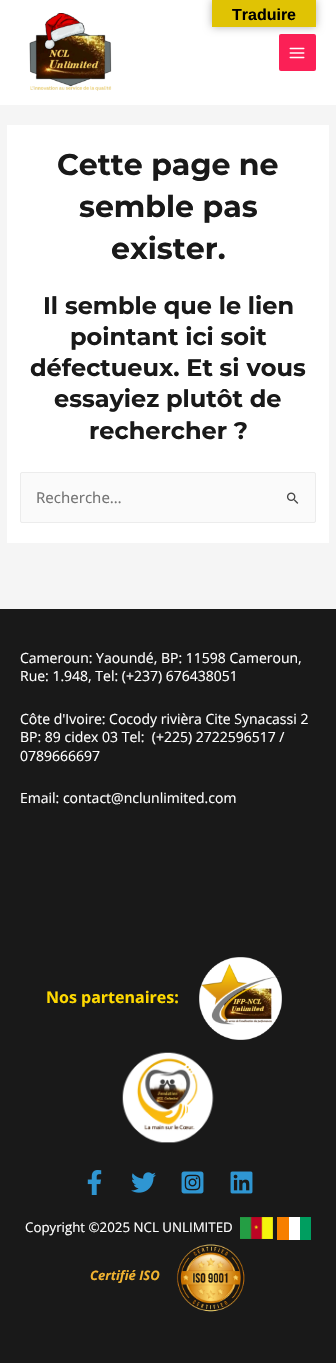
void draw(SkCanvas* canvas) {
	SkPaint paint;
	paint.setAntiAlias(true);
	canvas->clear(0xfff5f5f5);
	paint.setColor(0xffffffff);
	canvas->drawRect(SkRect::MakeXYWH(0, 0, 336, 105), paint);
	paint.setColor(0xfffb2056);
	canvas->drawRoundRect(SkRect::MakeXYWH(279, 34, 37, 37), 2, 2, paint);
	paint.setColor(0x4d000000);
	paint.setMaskFilter(SkMaskFilter::MakeBlur(kNormal_SkBlurStyle, 4.5));
	canvas->drawRect(SkRect::MakeXYWH(212, 0, 104, 27), paint);
	paint.setMaskFilter(nullptr);
	paint.setColor(0xffe0c304);
	canvas->drawRect(SkRect::MakeXYWH(212, 0, 104, 27), paint);
	SkFont f1(fontMgr->matchFamilyStyle("Liberation Sans", SkFontStyle::Bold()), 16);
	f1.setSubpixel(true);
	paint.setColor(0xff000000);
	canvas->drawString("Traduire", 232, 20, f1, paint);
	canvas->drawImageRect(SkImages::DeferredFromEncodedData(SkData::MakeFromFileName("img1.png")), SkRect::MakeXYWH(29, 13, 83, 78), SkSamplingOptions());
	canvas->drawImageRect(SkImages::DeferredFromEncodedData(SkData::MakeFromFileName("img2.png")), SkRect::MakeXYWH(289, 47, 16, 12), SkSamplingOptions());
	paint.setColor(0xffffffff);
	canvas->drawRect(SkRect::MakeXYWH(7, 125, 322, 418), paint);
	SkFont f2(fontMgr->matchFamilyStyle("Montserrat", SkFontStyle(100, SkFontStyle::kNormal_Width, SkFontStyle::kUpright_Slant)), 30);
	f2.setSubpixel(true);
	paint.setColor(0xff191919);
	canvas->drawString("Cette page ne", 57, 175, f2, paint);
	canvas->drawString("semble pas", 79, 217, f2, paint);
	canvas->drawString("exister.", 111, 259, f2, paint);
	SkFont f3(fontMgr->matchFamilyStyle("Montserrat", SkFontStyle(100, SkFontStyle::kNormal_Width, SkFontStyle::kUpright_Slant)), 24);
	f3.setSubpixel(true);
	canvas->drawString("Il semble que le lien", 43, 314, f3, paint);
	canvas->drawString("pointant ici soit", 70, 345, f3, paint);
	canvas->drawString("défectueux. Et si vous", 30, 376, f3, paint);
	canvas->drawString("essayiez plutôt de", 54, 407, f3, paint);
	canvas->drawString("rechercher ?", 89, 439, f3, paint);
	paint.setColor(0xfffafafa);
	canvas->drawRoundRect(SkRect::MakeXYWH(20.5, 472.5, 295, 50), 1.5, 1.5, paint);
	paint.setStroke(true);
	paint.setStrokeWidth(1);
	paint.setColor(0xffececec);
	canvas->drawRoundRect(SkRect::MakeXYWH(20.5, 472.5, 295, 50), 1.5, 1.5, paint);
	SkFont f4(fontMgr->matchFamilyStyle("Noto Sans", SkFontStyle::Normal()), 15);
	f4.setSubpixel(true);
	paint.setStroke(false);
	paint.setColor(0xff757575);
	canvas->drawString("Recherche…", 36, 503, f4, paint);
	canvas->drawImageRect(SkImages::DeferredFromEncodedData(SkData::MakeFromFileName("img3.png")), SkRect::MakeXYWH(286, 492, 13, 12), SkSamplingOptions());
	paint.setColor(0xff191919);
	canvas->drawRect(SkRect::MakeXYWH(0, 609, 336, 754), paint);
	SkFont f5(fontMgr->matchFamilyStyle("Open Sans", SkFontStyle::Normal()), 14);
	f5.setSubpixel(true);
	paint.setColor(0xffffffff);
	canvas->drawString("Cameroun: Yaoundé, BP: 11598 Cameroun,", 20, 663, f5, paint);
	canvas->drawString("Rue: 1.948, Tel: (+237) 676438051", 20, 681, f5, paint);
	canvas->drawString("Côte d'Ivoire: Cocody rivièra Cite Synacassi 2", 20, 724, f5, paint);
	canvas->drawString("BP: 89 cidex 03 Tel:  (+225) 2722596517 /", 20, 742, f5, paint);
	canvas->drawString("0789666697", 20, 761, f5, paint);
	canvas->drawString("Email: contact@nclunlimited.com", 20, 803, f5, paint);
	SkFont f6(fontMgr->matchFamilyStyle("Open Sans", SkFontStyle::Bold()), 16);
	f6.setSubpixel(true);
	paint.setColor(0xffffd900);
	canvas->drawString("Nos partenaires:", 46, 1003, f6, paint);
	canvas->drawImageRect(SkImages::DeferredFromEncodedData(SkData::MakeFromFileName("img4.png")), SkRect::MakeXYWH(199, 957, 83, 83), SkSamplingOptions());
	canvas->drawImageRect(SkImages::DeferredFromEncodedData(SkData::MakeFromFileName("img5.png")), SkRect::MakeXYWH(122, 1052, 92, 91), SkSamplingOptions());
	canvas->drawImageRect(SkImages::DeferredFromEncodedData(SkData::MakeFromFileName("img6.png")), SkRect::MakeXYWH(87, 1170, 15, 25), SkSamplingOptions());
	canvas->drawImageRect(SkImages::DeferredFromEncodedData(SkData::MakeFromFileName("img7.png")), SkRect::MakeXYWH(131, 1172, 25, 21), SkSamplingOptions());
	canvas->drawImageRect(SkImages::DeferredFromEncodedData(SkData::MakeFromFileName("img8.png")), SkRect::MakeXYWH(181, 1171, 23, 23), SkSamplingOptions());
	canvas->drawImageRect(SkImages::DeferredFromEncodedData(SkData::MakeFromFileName("img9.png")), SkRect::MakeXYWH(230, 1171, 23, 23), SkSamplingOptions());
	SkFont f7(fontMgr->matchFamilyStyle("Open Sans", SkFontStyle::Normal()), 13.3);
	f7.setSubpixel(true);
	paint.setColor(0xffffffff);
	canvas->drawString("Copyright ©2025 NCL UNLIMITED", 25, 1232, f7, paint);
	canvas->drawImageRect(SkImages::DeferredFromEncodedData(SkData::MakeFromFileName("img10.png")), SkRect::MakeXYWH(240, 1217, 33, 22), SkSamplingOptions());
	paint.setColor(0xfff77f00);
	canvas->drawRect(SkRect::MakeXYWH(277, 1217, 12, 23), paint);
	paint.setColor(0xffffffff);
	canvas->drawRect(SkRect::MakeXYWH(289, 1217, 11, 23), paint);
	paint.setColor(0xff009e60);
	canvas->drawRect(SkRect::MakeXYWH(300, 1217, 11, 23), paint);
	SkFont f8(fontMgr->matchFamilyStyle("Open Sans", SkFontStyle::BoldItalic()), 13);
	f8.setSubpixel(true);
	paint.setColor(0xfff0b330);
	canvas->drawString("Certifié ISO", 90, 1280, f8, paint);
	canvas->drawImageRect(SkImages::DeferredFromEncodedData(SkData::MakeFromFileName("img11.png")), SkRect::MakeXYWH(176, 1244, 69, 68), SkSamplingOptions());
}
